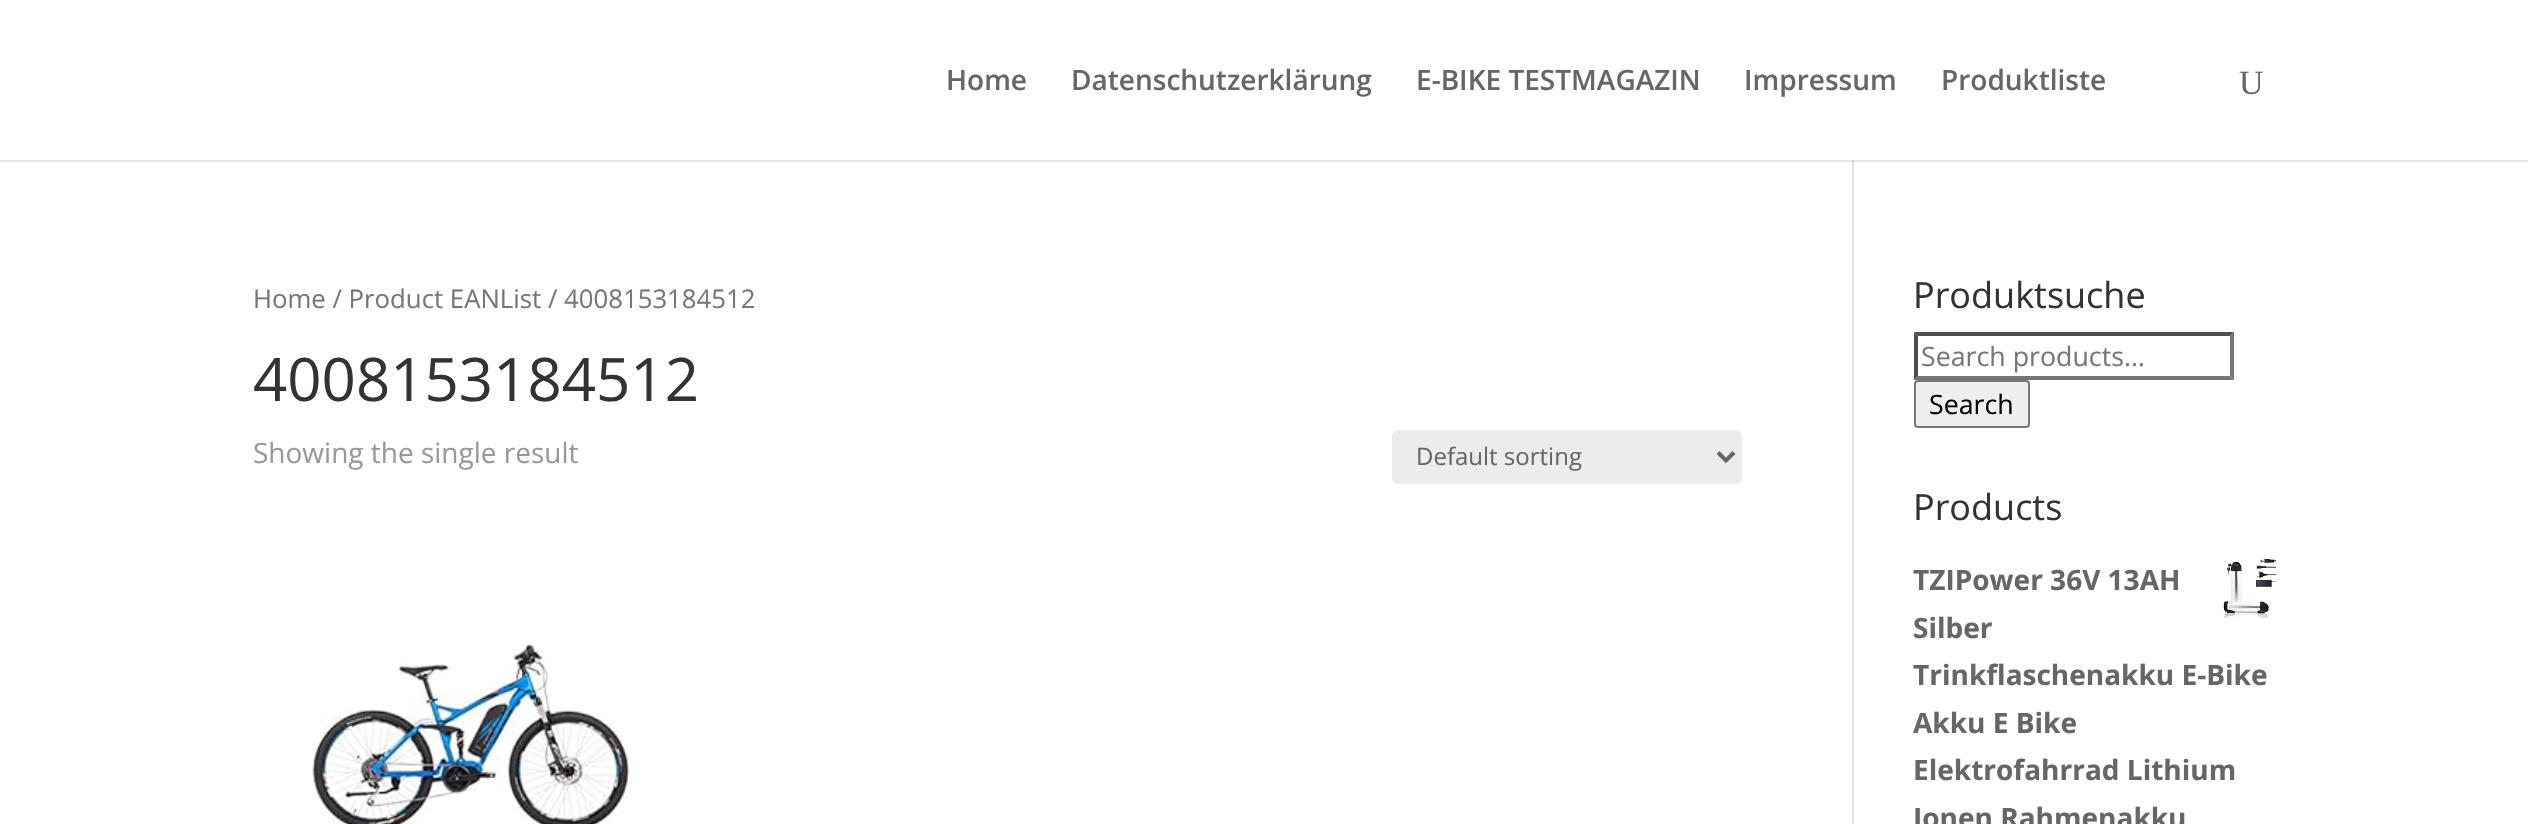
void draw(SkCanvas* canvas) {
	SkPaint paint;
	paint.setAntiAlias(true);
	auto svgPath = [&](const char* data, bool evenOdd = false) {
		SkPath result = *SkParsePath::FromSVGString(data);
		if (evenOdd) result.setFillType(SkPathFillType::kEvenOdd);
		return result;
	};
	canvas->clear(0xffffffff);
	paint.setColor(0xffe6e6e6);
	canvas->drawRect(SkRect::MakeXYWH(0, 160, 2528, 2), paint);
	SkFont f1(fontMgr->matchFamilyStyle("Open Sans", SkFontStyle(600, SkFontStyle::kNormal_Width, SkFontStyle::kUpright_Slant)), 28);
	f1.setSubpixel(true);
	paint.setColor(0xff666666);
	canvas->drawString("Home", 946, 90, f1, paint);
	canvas->drawString("Datenschutzerklärung", 1071, 90, f1, paint);
	canvas->drawString("E-BIKE TESTMAGAZIN", 1416, 90, f1, paint);
	canvas->drawString("Impressum", 1744, 90, f1, paint);
	canvas->drawString("Produktliste", 1941, 90, f1, paint);
	SkFont f2(fontMgr->matchFamilyStyle("Liberation Serif", SkFontStyle::Normal()), 34);
	f2.setSubpixel(true);
	canvas->drawString("U", 2239, 94, f2, paint);
	paint.setColor(0xffe2e2e2);
	canvas->drawRect(SkRect::MakeXYWH(1852, 160, 2, 664), paint);
	paint.setColor(0xffcbcbcb);
	canvas->drawRect(SkRect::MakeXYWH(1852, 160, 2, 2), paint);
	SkFont f3(fontMgr->matchFamilyStyle("Open Sans", SkFontStyle::Normal()), 25.75);
	f3.setSubpixel(true);
	paint.setColor(0xff777777);
	canvas->drawString("Home / Product EANList / 4008153184512", 253, 308, f3, paint);
	SkFont f4(fontMgr->matchFamilyStyle("Open Sans", SkFontStyle::Normal()), 60);
	f4.setSubpixel(true);
	paint.setColor(0xff333333);
	canvas->drawString("4008153184512", 253, 401, f4, paint);
	SkFont f5(fontMgr->matchFamilyStyle("Open Sans", SkFontStyle::Normal()), 28);
	f5.setSubpixel(true);
	paint.setColor(0xff999999);
	canvas->drawString("Showing the single result", 253, 463, f5, paint);
	paint.setColor(0xffececec);
	canvas->drawRoundRect(SkRect::MakeXYWH(1392, 430, 350, 54), 6, 6, paint);
	paint.setStroke(true);
	paint.setStrokeWidth(4);
	paint.setColor(0xff666666);
	canvas->drawPath(svgPath("M1718 452.5L1726 460.5L1734 452.5"), paint);
	SkFont f6(fontMgr->matchFamilyStyle("Open Sans", SkFontStyle::Normal()), 24);
	f6.setSubpixel(true);
	paint.setStroke(false);
	canvas->drawString("Default sorting", 1416, 465, f6, paint);
	canvas->drawImageRect(SkImages::DeferredFromEncodedData(SkData::MakeFromFileName("img1.png")), SkRect::MakeXYWH(311, 644, 324, 180), SkSamplingOptions());
	SkFont f7(fontMgr->matchFamilyStyle("Open Sans", SkFontStyle::Normal()), 36);
	f7.setSubpixel(true);
	paint.setColor(0xff333333);
	canvas->drawString("Produktsuche", 1913, 308, f7, paint);
	paint.setColor(0xff4f4f4f);
	canvas->drawPath(svgPath("M1914 332H2234L2230 336H1918Z"), paint);
	paint.setColor(0xff767676);
	canvas->drawPath(svgPath("M2234 332V380L2230 376V336Z"), paint);
	canvas->drawPath(svgPath("M2234 380H1914L1918 376H2230Z"), paint);
	paint.setColor(0xff4f4f4f);
	canvas->drawPath(svgPath("M1914 380V332L1918 336V376Z"), paint);
	SkFont f8(fontMgr->matchFamilyStyle("Open Sans", SkFontStyle::Normal()), 26.75);
	f8.setSubpixel(true);
	paint.setColor(0xff777777);
	canvas->drawString("Search products…", 1921, 366, f8, paint);
	paint.setColor(0xffefefef);
	canvas->drawRoundRect(SkRect::MakeXYWH(1915, 381, 114, 46), 3, 3, paint);
	paint.setStroke(true);
	paint.setStrokeWidth(2);
	paint.setColor(0xff767676);
	canvas->drawRoundRect(SkRect::MakeXYWH(1915, 381, 114, 46), 3, 3, paint);
	paint.setStroke(false);
	paint.setColor(0xff000000);
	canvas->drawString("Search", 1929, 414, f8, paint);
	paint.setColor(0xff333333);
	canvas->drawString("Products", 1913, 520, f7, paint);
	SkFont f9(fontMgr->matchFamilyStyle("Open Sans", SkFontStyle::Bold()), 28);
	f9.setSubpixel(true);
	paint.setColor(0xff666666);
	canvas->drawString("TZIPower 36V 13AH", 1913, 590, f9, paint);
	canvas->drawImageRect(SkImages::DeferredFromEncodedData(SkData::MakeFromFileName("img2.png")), SkRect::MakeXYWH(2223, 558, 53, 61), SkSamplingOptions());
	canvas->drawString("Silber", 1913, 638, f9, paint);
	canvas->drawString("Trinkflaschenakku E-Bike", 1913, 685, f9, paint);
	canvas->drawString("Akku E Bike", 1913, 733, f9, paint);
	canvas->drawString("Elektrofahrrad Lithium", 1913, 780, f9, paint);
	canvas->drawString("Ionen Rahmenakku", 1913, 828, f9, paint);
}
